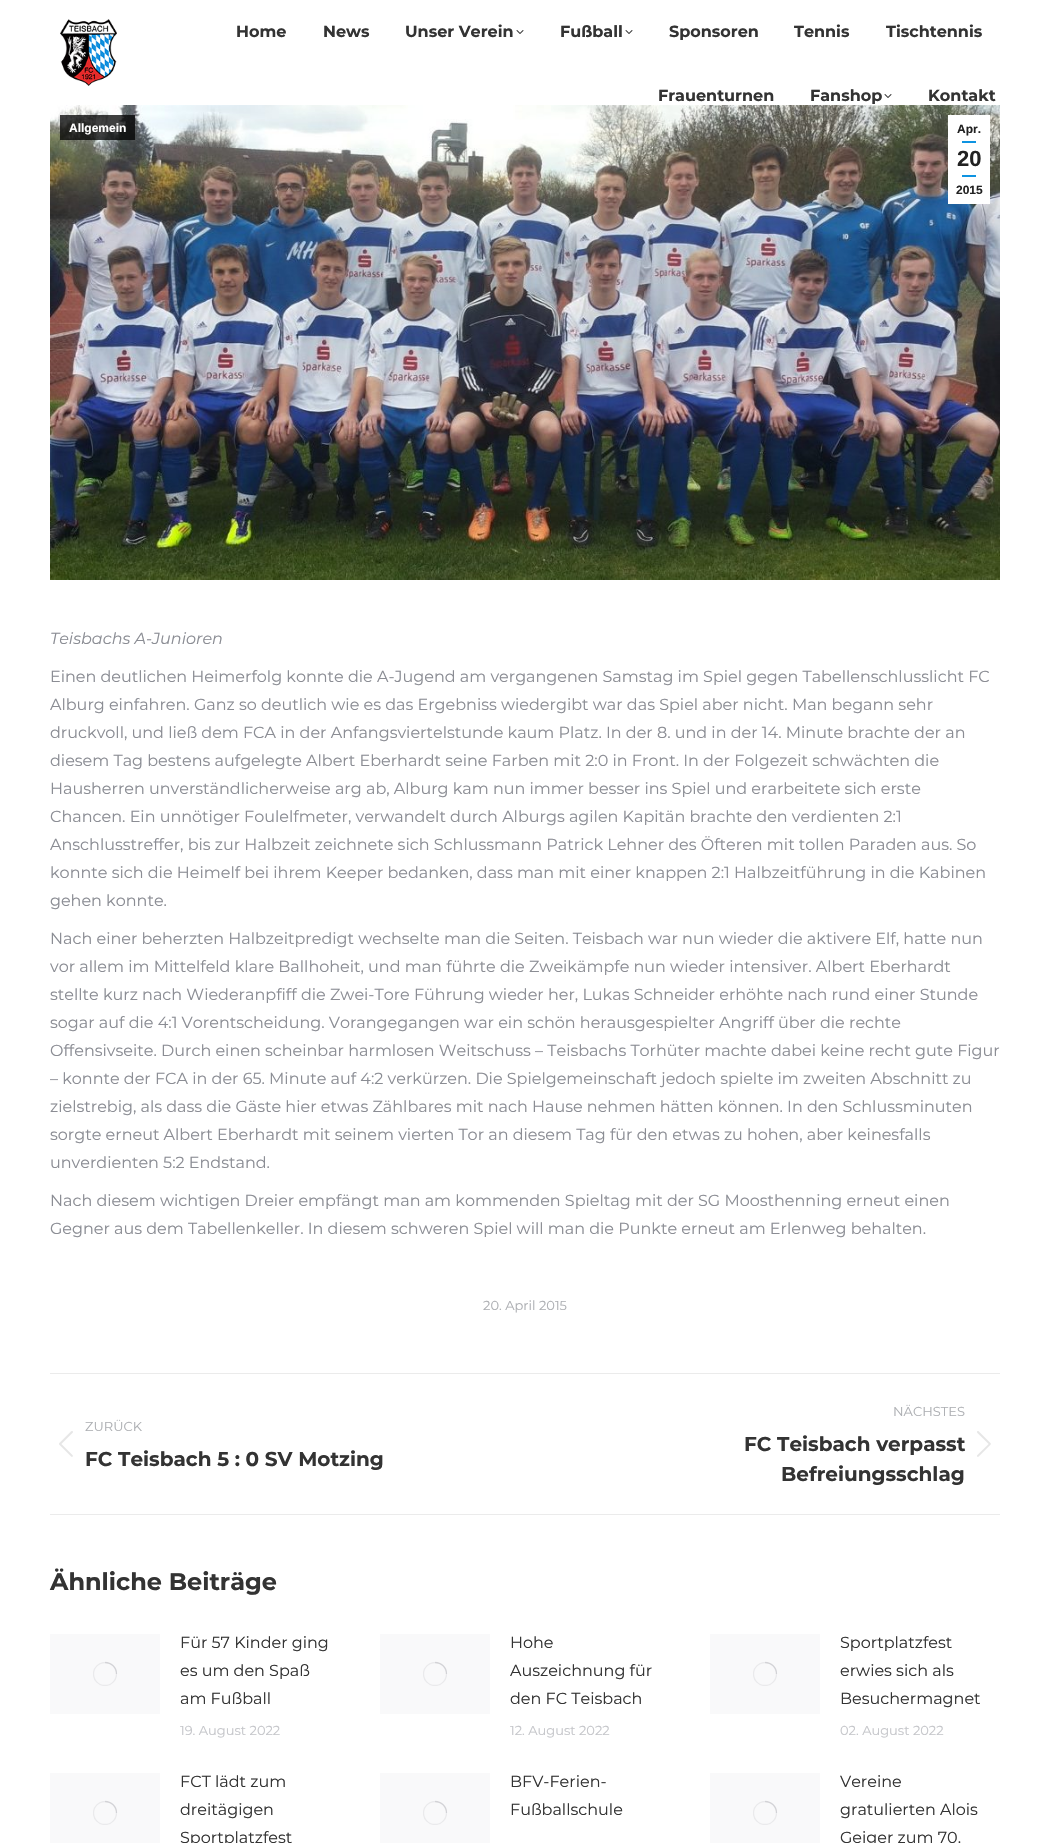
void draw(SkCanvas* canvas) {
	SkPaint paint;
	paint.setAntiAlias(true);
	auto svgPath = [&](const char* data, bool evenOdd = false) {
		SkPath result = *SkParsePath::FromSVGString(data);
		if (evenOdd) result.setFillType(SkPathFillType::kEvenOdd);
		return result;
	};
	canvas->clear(0xffffffff);
	canvas->drawImageRect(SkImages::DeferredFromEncodedData(SkData::MakeFromFileName("img1.png")), SkRect::MakeXYWH(60, 19, 57, 67), SkSamplingOptions());
	SkFont f1(fontMgr->matchFamilyStyle("Montserrat", SkFontStyle::Bold()), 16);
	f1.setSubpixel(true);
	paint.setColor(0xff333333);
	canvas->drawString("Home", 236, 37, f1, paint);
	canvas->drawString("News", 323, 37, f1, paint);
	canvas->drawString("Unser Verein", 405, 37, f1, paint);
	canvas->drawImageRect(SkImages::DeferredFromEncodedData(SkData::MakeFromFileName("img2.png")), SkRect::MakeXYWH(516, 30, 8, 4), SkSamplingOptions());
	canvas->drawString("Fußball", 560, 37, f1, paint);
	canvas->drawImageRect(SkImages::DeferredFromEncodedData(SkData::MakeFromFileName("img2.png")), SkRect::MakeXYWH(625, 30, 8, 4), SkSamplingOptions());
	canvas->drawString("Sponsoren", 669, 37, f1, paint);
	canvas->drawString("Tennis", 794, 37, f1, paint);
	canvas->drawString("Tischtennis", 886, 37, f1, paint);
	canvas->drawString("Frauenturnen", 658, 101, f1, paint);
	canvas->drawString("Fanshop", 810, 101, f1, paint);
	canvas->drawImageRect(SkImages::DeferredFromEncodedData(SkData::MakeFromFileName("img2.png")), SkRect::MakeXYWH(884, 94, 8, 4), SkSamplingOptions());
	canvas->drawString("Kontakt", 928, 101, f1, paint);
	canvas->drawImageRect(SkImages::DeferredFromEncodedData(SkData::MakeFromFileName("img3.png")), SkRect::MakeXYWH(50, 105, 950, 475), SkSamplingOptions());
	paint.setColor(0xbf000000);
	canvas->drawRect(SkRect::MakeXYWH(60, 115, 75, 25), paint);
	SkFont f2(fontMgr->matchFamilyStyle("Liberation Sans", SkFontStyle::Bold()), 12);
	f2.setSubpixel(true);
	paint.setColor(0xffffffff);
	canvas->drawString("Allgemein", 69, 132, f2, paint);
	canvas->drawRect(SkRect::MakeXYWH(948, 115, 42, 89), paint);
	paint.setColor(0xff222222);
	canvas->drawString("Apr.", 957, 133, f2, paint);
	paint.setColor(0xff0e93e1);
	canvas->drawRect(SkRect::MakeXYWH(962, 141, 14, 2), paint);
	SkFont f3(fontMgr->matchFamilyStyle("Liberation Sans", SkFontStyle::Bold()), 22);
	f3.setSubpixel(true);
	paint.setColor(0xff222222);
	canvas->drawString("20", 957, 166, f3, paint);
	paint.setColor(0xff0e93e1);
	canvas->drawRect(SkRect::MakeXYWH(962, 175, 14, 2), paint);
	paint.setColor(0xff222222);
	canvas->drawString("2015", 956, 194, f2, paint);
	SkFont f4(fontMgr->matchFamilyStyle("Montserrat", SkFontStyle(100, SkFontStyle::kNormal_Width, SkFontStyle::kItalic_Slant)), 16);
	f4.setSubpixel(true);
	paint.setColor(0xff8b8d94);
	canvas->drawString("Teisbachs A-Junioren", 50, 644, f4, paint);
	SkFont f5(fontMgr->matchFamilyStyle("Montserrat", SkFontStyle::Normal()), 16);
	f5.setSubpixel(true);
	canvas->drawString("Einen deutlichen Heimerfolg konnte die A-Jugend am vergangenen Samstag im Spiel gegen Tabellenschlusslicht FC", 50, 682, f5, paint);
	canvas->drawString("Alburg einfahren. Ganz so deutlich wie es das Ergebniss wiedergibt war das Spiel aber nicht. Man begann sehr", 50, 710, f5, paint);
	canvas->drawString("druckvoll, und ließ dem FCA in der Anfangsviertelstunde kaum Platz. In der 8. und in der 14. Minute brachte der an", 50, 738, f5, paint);
	canvas->drawString("diesem Tag bestens aufgelegte Albert Eberhardt seine Farben mit 2:0 in Front. In der Folgezeit schwächten die", 50, 766, f5, paint);
	canvas->drawString("Hausherren unverständlicherweise arg ab, Alburg kam nun immer besser ins Spiel und erarbeitete sich erste", 50, 794, f5, paint);
	canvas->drawString("Chancen. Ein unnötiger Foulelfmeter, verwandelt durch Alburgs agilen Kapitän brachte den verdienten 2:1", 50, 822, f5, paint);
	canvas->drawString("Anschlusstreffer, bis zur Halbzeit zeichnete sich Schlussmann Patrick Lehner des Öfteren mit tollen Paraden aus. So", 50, 850, f5, paint);
	canvas->drawString("konnte sich die Heimelf bei ihrem Keeper bedanken, dass man mit einer knappen 2:1 Halbzeitführung in die Kabinen", 50, 878, f5, paint);
	canvas->drawString("gehen konnte.", 50, 906, f5, paint);
	canvas->drawString("Nach einer beherzten Halbzeitpredigt wechselte man die Seiten. Teisbach war nun wieder die aktivere Elf, hatte nun", 50, 944, f5, paint);
	canvas->drawString("vor allem im Mittelfeld klare Ballhoheit, und man führte die Zweikämpfe nun wieder intensiver. Albert Eberhardt", 50, 972, f5, paint);
	canvas->drawString("stellte kurz nach Wiederanpfiff die Zwei-Tore Führung wieder her, Lukas Schneider erhöhte nach rund einer Stunde", 50, 1000, f5, paint);
	canvas->drawString("sogar auf die 4:1 Vorentscheidung. Vorangegangen war ein schön herausgespielter Angriff über die rechte", 50, 1028, f5, paint);
	canvas->drawString("Offensivseite. Durch einen scheinbar harmlosen Weitschuss – Teisbachs Torhüter machte dabei keine recht gute Figur", 50, 1056, f5, paint);
	canvas->drawString("– konnte der FCA in der 65. Minute auf 4:2 verkürzen. Die Spielgemeinschaft jedoch spielte im zweiten Abschnitt zu", 50, 1084, f5, paint);
	canvas->drawString("zielstrebig, als dass die Gäste hier etwas Zählbares mit nach Hause nehmen hätten können. In den Schlussminuten", 50, 1112, f5, paint);
	canvas->drawString("sorgte erneut Albert Eberhardt mit seinem vierten Tor an diesem Tag für den etwas zu hohen, aber keinesfalls", 50, 1140, f5, paint);
	canvas->drawString("unverdienten 5:2 Endstand.", 50, 1168, f5, paint);
	canvas->drawString("Nach diesem wichtigen Dreier empfängt man am kommenden Spieltag mit der SG Moosthenning erneut einen", 50, 1206, f5, paint);
	canvas->drawString("Gegner aus dem Tabellenkeller. In diesem schweren Spiel will man die Punkte erneut am Erlenweg behalten.", 50, 1234, f5, paint);
	SkFont f6(fontMgr->matchFamilyStyle("Montserrat", SkFontStyle::Normal()), 13);
	f6.setSubpixel(true);
	paint.setColor(0xffadafb3);
	canvas->drawString("20. April 2015", 483, 1310, f6, paint);
	paint.setColor(0xffebebeb);
	canvas->drawRect(SkRect::MakeXYWH(50, 1373, 950, 1), paint);
	canvas->drawRect(SkRect::MakeXYWH(50, 1514, 950, 1), paint);
	paint.setColor(0xffadafb3);
	canvas->drawString("ZURÜCK", 85, 1431, f6, paint);
	canvas->drawImageRect(SkImages::DeferredFromEncodedData(SkData::MakeFromFileName("img4.png")), SkRect::MakeXYWH(59, 1431, 14, 26), SkSamplingOptions());
	SkFont f7(fontMgr->matchFamilyStyle("Montserrat", SkFontStyle::Bold()), 20);
	f7.setSubpixel(true);
	paint.setColor(0xff333333);
	canvas->drawString("FC Teisbach 5 : 0 SV Motzing", 85, 1466, f7, paint);
	paint.setColor(0xffadafb3);
	canvas->drawString("NÄCHSTES", 893, 1416, f6, paint);
	paint.setColor(0xff333333);
	canvas->drawString("FC Teisbach verpasst", 744, 1451, f7, paint);
	canvas->drawString("Befreiungsschlag", 781, 1481, f7, paint);
	canvas->drawImageRect(SkImages::DeferredFromEncodedData(SkData::MakeFromFileName("img5.png")), SkRect::MakeXYWH(977, 1431, 14, 26), SkSamplingOptions());
	SkFont f8(fontMgr->matchFamilyStyle("Montserrat", SkFontStyle::Bold()), 24);
	f8.setSubpixel(true);
	canvas->drawString("Ähnliche Beiträge", 50, 1590, f8, paint);
	paint.setColor(0xfff9f9fa);
	canvas->drawRect(SkRect::MakeXYWH(50, 1634, 110, 80), paint);
	canvas->save();
	canvas->clipRect(SkRect::MakeXYWH(93, 1662, 24, 24));
	paint.setStroke(true);
	paint.setStrokeWidth(1.3);
	paint.setColor(0xffeaeaec);
	canvas->drawCircle(105, 1674, 11.5, paint);
	canvas->restore();
	paint.setColor(0x408b8d94);
	canvas->drawPath(svgPath("M116.5 1674C116.5 1667.5 111.5 1662.5 105 1662.5"), paint);
	paint.setStroke(false);
	paint.setColor(0xff333333);
	canvas->drawString("Für 57 Kinder ging", 180, 1648, f5, paint);
	canvas->drawString("es um den Spaß", 180, 1676, f5, paint);
	canvas->drawString("am Fußball", 180, 1704, f5, paint);
	paint.setColor(0xffc5c6ca);
	canvas->drawString("19. August 2022", 180, 1735, f6, paint);
	paint.setColor(0xfff9f9fa);
	canvas->drawRect(SkRect::MakeXYWH(380, 1634, 110, 80), paint);
	canvas->save();
	canvas->clipRect(SkRect::MakeXYWH(423, 1662, 24, 24));
	paint.setStroke(true);
	paint.setColor(0xffeaeaec);
	canvas->drawCircle(435, 1674, 11.5, paint);
	canvas->restore();
	paint.setColor(0x408b8d94);
	canvas->drawPath(svgPath("M446.5 1674C446.5 1667.5 441.5 1662.5 435 1662.5"), paint);
	paint.setStroke(false);
	paint.setColor(0xff333333);
	canvas->drawString("Hohe", 510, 1648, f5, paint);
	canvas->drawString("Auszeichnung für", 510, 1676, f5, paint);
	canvas->drawString("den FC Teisbach", 510, 1704, f5, paint);
	paint.setColor(0xffc5c6ca);
	canvas->drawString("12. August 2022", 510, 1735, f6, paint);
	paint.setColor(0xfff9f9fa);
	canvas->drawRect(SkRect::MakeXYWH(710, 1634, 110, 80), paint);
	canvas->save();
	canvas->clipRect(SkRect::MakeXYWH(753, 1662, 24, 24));
	paint.setStroke(true);
	paint.setColor(0xffeaeaec);
	canvas->drawCircle(765, 1674, 11.5, paint);
	canvas->restore();
	paint.setColor(0x408b8d94);
	canvas->drawPath(svgPath("M776.5 1674C776.5 1667.5 771.5 1662.5 765 1662.5"), paint);
	paint.setStroke(false);
	paint.setColor(0xff333333);
	canvas->drawString("Sportplatzfest", 840, 1648, f5, paint);
	canvas->drawString("erwies sich als", 840, 1676, f5, paint);
	canvas->drawString("Besuchermagnet", 840, 1704, f5, paint);
	paint.setColor(0xffc5c6ca);
	canvas->drawString("02. August 2022", 840, 1735, f6, paint);
	paint.setColor(0xfff9f9fa);
	canvas->drawRect(SkRect::MakeXYWH(50, 1773, 110, 70), paint);
	canvas->save();
	canvas->clipRect(SkRect::MakeXYWH(93, 1801, 24, 24));
	paint.setStroke(true);
	paint.setColor(0xffeaeaec);
	canvas->drawCircle(105, 1813, 11.5, paint);
	canvas->restore();
	paint.setColor(0x408b8d94);
	canvas->drawPath(svgPath("M116.5 1813C116.5 1806.5 111.5 1801.5 105 1801.5"), paint);
	paint.setStroke(false);
	paint.setColor(0xff333333);
	canvas->drawString("FCT lädt zum", 180, 1787, f5, paint);
	canvas->drawString("dreitägigen", 180, 1815, f5, paint);
	canvas->drawString("Sportplatzfest", 180, 1843, f5, paint);
	paint.setColor(0xfff9f9fa);
	canvas->drawRect(SkRect::MakeXYWH(380, 1773, 110, 70), paint);
	canvas->save();
	canvas->clipRect(SkRect::MakeXYWH(423, 1801, 24, 24));
	paint.setStroke(true);
	paint.setColor(0xffeaeaec);
	canvas->drawCircle(435, 1813, 11.5, paint);
	canvas->restore();
	paint.setColor(0x408b8d94);
	canvas->drawPath(svgPath("M446.5 1813C446.5 1806.5 441.5 1801.5 435 1801.5"), paint);
	paint.setStroke(false);
	paint.setColor(0xff333333);
	canvas->drawString("BFV-Ferien-", 510, 1787, f5, paint);
	canvas->drawString("Fußballschule", 510, 1815, f5, paint);
	paint.setColor(0xfff9f9fa);
	canvas->drawRect(SkRect::MakeXYWH(710, 1773, 110, 70), paint);
	canvas->save();
	canvas->clipRect(SkRect::MakeXYWH(753, 1801, 24, 24));
	paint.setStroke(true);
	paint.setColor(0xffeaeaec);
	canvas->drawCircle(765, 1813, 11.5, paint);
	canvas->restore();
	paint.setColor(0x408b8d94);
	canvas->drawPath(svgPath("M776.5 1813C776.5 1806.5 771.5 1801.5 765 1801.5"), paint);
	paint.setStroke(false);
	paint.setColor(0xff333333);
	canvas->drawString("Vereine", 840, 1787, f5, paint);
	canvas->drawString("gratulierten Alois", 840, 1815, f5, paint);
	canvas->drawString("Geiger zum 70.", 840, 1843, f5, paint);
}
